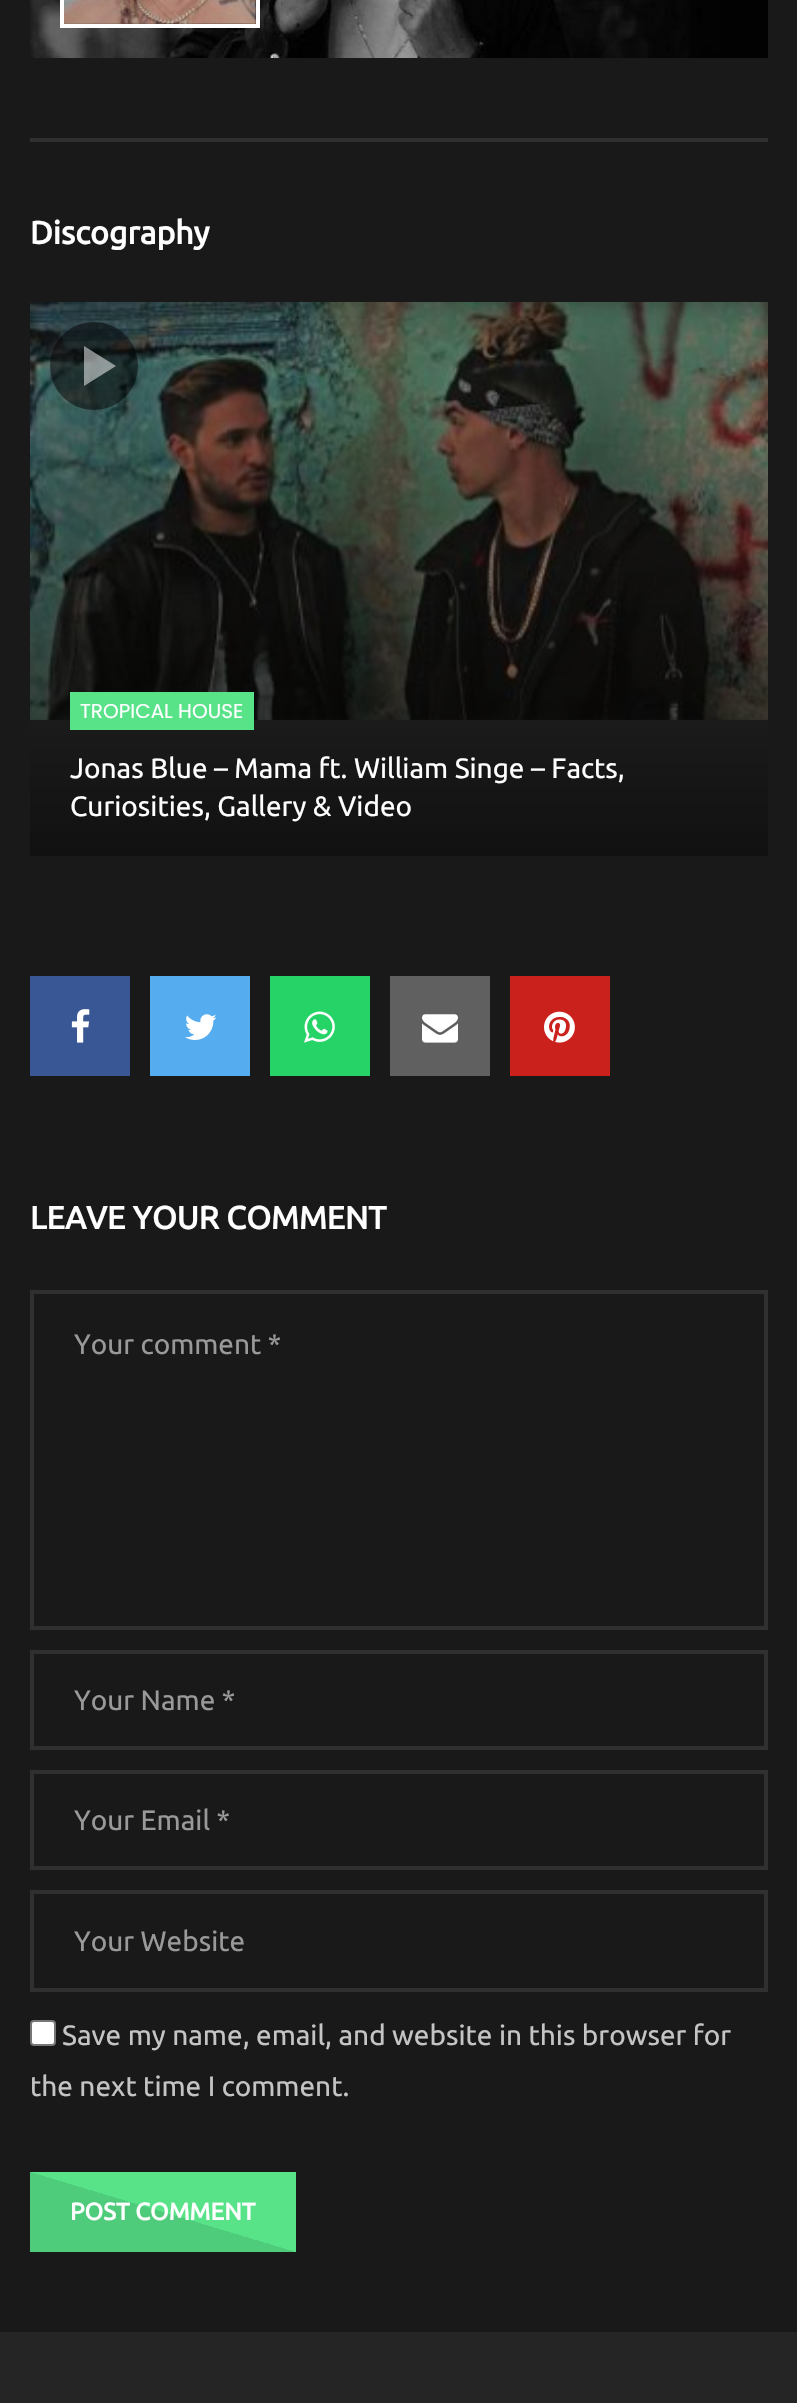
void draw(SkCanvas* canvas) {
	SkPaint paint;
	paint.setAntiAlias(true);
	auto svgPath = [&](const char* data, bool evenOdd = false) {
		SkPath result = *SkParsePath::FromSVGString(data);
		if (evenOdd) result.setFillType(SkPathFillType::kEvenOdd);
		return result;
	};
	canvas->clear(0xff191919);
	canvas->drawImageRect(SkImages::DeferredFromEncodedData(SkData::MakeFromFileName("img1.png")), SkRect::MakeXYWH(30, 0, 738, 58), SkSamplingOptions());
	paint.setStroke(true);
	paint.setStrokeWidth(4);
	paint.setColor(0xffffffff);
	canvas->drawRect(SkRect::MakeXYWH(62, -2, 196, 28), paint);
	canvas->drawImageRect(SkImages::DeferredFromEncodedData(SkData::MakeFromFileName("img2.png")), SkRect::MakeXYWH(64, 0, 192, 24), SkSamplingOptions());
	paint.setStroke(false);
	paint.setColor(0xff303030);
	canvas->drawRect(SkRect::MakeXYWH(30, 138, 738, 4), paint);
	SkFont f1(fontMgr->matchFamilyStyle("Ubuntu", SkFontStyle::Bold()), 32);
	f1.setSubpixel(true);
	paint.setColor(0xffffffff);
	canvas->drawString("Discography", 30, 244, f1, paint);
	paint.setColor(0xff303030);
	canvas->drawRect(SkRect::MakeXYWH(30, 717, 738, 139), paint);
	canvas->drawImageRect(SkImages::DeferredFromEncodedData(SkData::MakeFromFileName("img3.png")), SkRect::MakeXYWH(30, 302, 738, 418), SkSamplingOptions());
	paint.setColor(0x80000000);
	canvas->drawCircle(94, 366, 44, paint);
	paint.setColor(0x80ffffff);
	canvas->drawPath(svgPath("M84 386V346L116 366Z"), paint);
	{
		const SkColor colors[] = {0x00000000, 0xa8000000};
		const float stops[] = {0, 1};
		const SkPoint ends[] = {{399, 414}, {399, 856}};
		paint.setShader(SkGradientShader::MakeLinear(ends, colors, stops, 2, SkTileMode::kClamp));
		paint.setAlpha(255);
	}
	canvas->drawRect(SkRect::MakeXYWH(30, 428, 738, 428), paint);
	paint.setShader(nullptr);
	paint.setColor(0xff58e389);
	canvas->drawRect(SkRect::MakeXYWH(70, 692, 184, 38), paint);
	SkFont f2(fontMgr->matchFamilyStyle("Poppins", SkFontStyle::Normal()), 20);
	f2.setSubpixel(true);
	paint.setColor(0xffffffff);
	canvas->drawString("TROPICAL HOUSE", 80, 718, f2, paint);
	SkFont f3(fontMgr->matchFamilyStyle("Ubuntu", SkFontStyle::Normal()), 28);
	f3.setSubpixel(true);
	canvas->drawString("Jonas Blue – Mama ft. William Singe – Facts,", 70, 778, f3, paint);
	canvas->drawString("Curiosities, Gallery & Video", 70, 816, f3, paint);
	paint.setColor(0xff3a5795);
	canvas->drawRect(SkRect::MakeXYWH(30, 976, 100, 100), paint);
	canvas->drawImageRect(SkImages::DeferredFromEncodedData(SkData::MakeFromFileName("img4.png")), SkRect::MakeXYWH(71, 1009, 19, 34), SkSamplingOptions());
	paint.setColor(0xff55acee);
	canvas->drawRect(SkRect::MakeXYWH(150, 976, 100, 100), paint);
	canvas->drawImageRect(SkImages::DeferredFromEncodedData(SkData::MakeFromFileName("img5.png")), SkRect::MakeXYWH(185, 1014, 32, 26), SkSamplingOptions());
	paint.setColor(0xff25d366);
	canvas->drawRect(SkRect::MakeXYWH(270, 976, 100, 100), paint);
	canvas->drawImageRect(SkImages::DeferredFromEncodedData(SkData::MakeFromFileName("img6.png")), SkRect::MakeXYWH(304, 1011, 31, 32), SkSamplingOptions());
	paint.setColor(0xff606060);
	canvas->drawRect(SkRect::MakeXYWH(390, 976, 100, 100), paint);
	canvas->drawImageRect(SkImages::DeferredFromEncodedData(SkData::MakeFromFileName("img7.png")), SkRect::MakeXYWH(422, 1014, 36, 29), SkSamplingOptions());
	paint.setColor(0xffcb211d);
	canvas->drawRect(SkRect::MakeXYWH(510, 976, 100, 100), paint);
	canvas->drawImageRect(SkImages::DeferredFromEncodedData(SkData::MakeFromFileName("img8.png")), SkRect::MakeXYWH(544, 1011, 31, 32), SkSamplingOptions());
	paint.setColor(0xffffffff);
	canvas->drawString("LEAVE YOUR COMMENT", 30, 1229, f1, paint);
	paint.setStroke(true);
	paint.setColor(0xff303030);
	canvas->drawRect(SkRect::MakeXYWH(32, 1292, 734, 336), paint);
	paint.setStroke(false);
	paint.setColor(0xff999999);
	canvas->drawString("Your comment *", 74, 1354, f3, paint);
	paint.setStroke(true);
	paint.setColor(0xff303030);
	canvas->drawRect(SkRect::MakeXYWH(32, 1652, 734, 96), paint);
	paint.setStroke(false);
	paint.setColor(0xff999999);
	canvas->drawString("Your Name *", 74, 1710, f3, paint);
	paint.setStroke(true);
	paint.setColor(0xff303030);
	canvas->drawRect(SkRect::MakeXYWH(32, 1772, 734, 96), paint);
	paint.setStroke(false);
	paint.setColor(0xff999999);
	canvas->drawString("Your Email *", 74, 1830, f3, paint);
	paint.setStroke(true);
	paint.setColor(0xff303030);
	canvas->drawRect(SkRect::MakeXYWH(32, 1892, 734, 98), paint);
	paint.setStroke(false);
	paint.setColor(0xff999999);
	canvas->drawString("Your Website", 74, 1951, f3, paint);
	paint.setColor(0xffffffff);
	canvas->drawRoundRect(SkRect::MakeXYWH(31, 2021, 24, 24), 3, 3, paint);
	paint.setStroke(true);
	paint.setStrokeWidth(2);
	paint.setColor(0xff767676);
	canvas->drawRoundRect(SkRect::MakeXYWH(31, 2021, 24, 24), 3, 3, paint);
	paint.setStroke(false);
	paint.setColor(0xffc4c4c4);
	canvas->drawString("Save my name, email, and website in this browser for", 62, 2045, f3, paint);
	canvas->drawString("the next time I comment.", 30, 2096, f3, paint);
	{
		const SkColor colors[] = {0xff58e389, 0xff4fcc7b};
		const float stops[] = {0.5, 0.5};
		const SkPoint ends[] = {{185, 2139}, {141, 2285}};
		paint.setShader(SkGradientShader::MakeLinear(ends, colors, stops, 2, SkTileMode::kClamp));
		paint.setAlpha(255);
	}
	canvas->drawRect(SkRect::MakeXYWH(30, 2172, 266, 80), paint);
	SkFont f4(fontMgr->matchFamilyStyle("Ubuntu", SkFontStyle::Bold()), 24);
	f4.setSubpixel(true);
	paint.setShader(nullptr);
	paint.setColor(0xffffffff);
	canvas->drawString("POST COMMENT", 70, 2220, f4, paint);
	paint.setColor(0xff252525);
	canvas->drawRect(SkRect::MakeXYWH(0, 2332, 797, 71), paint);
}
